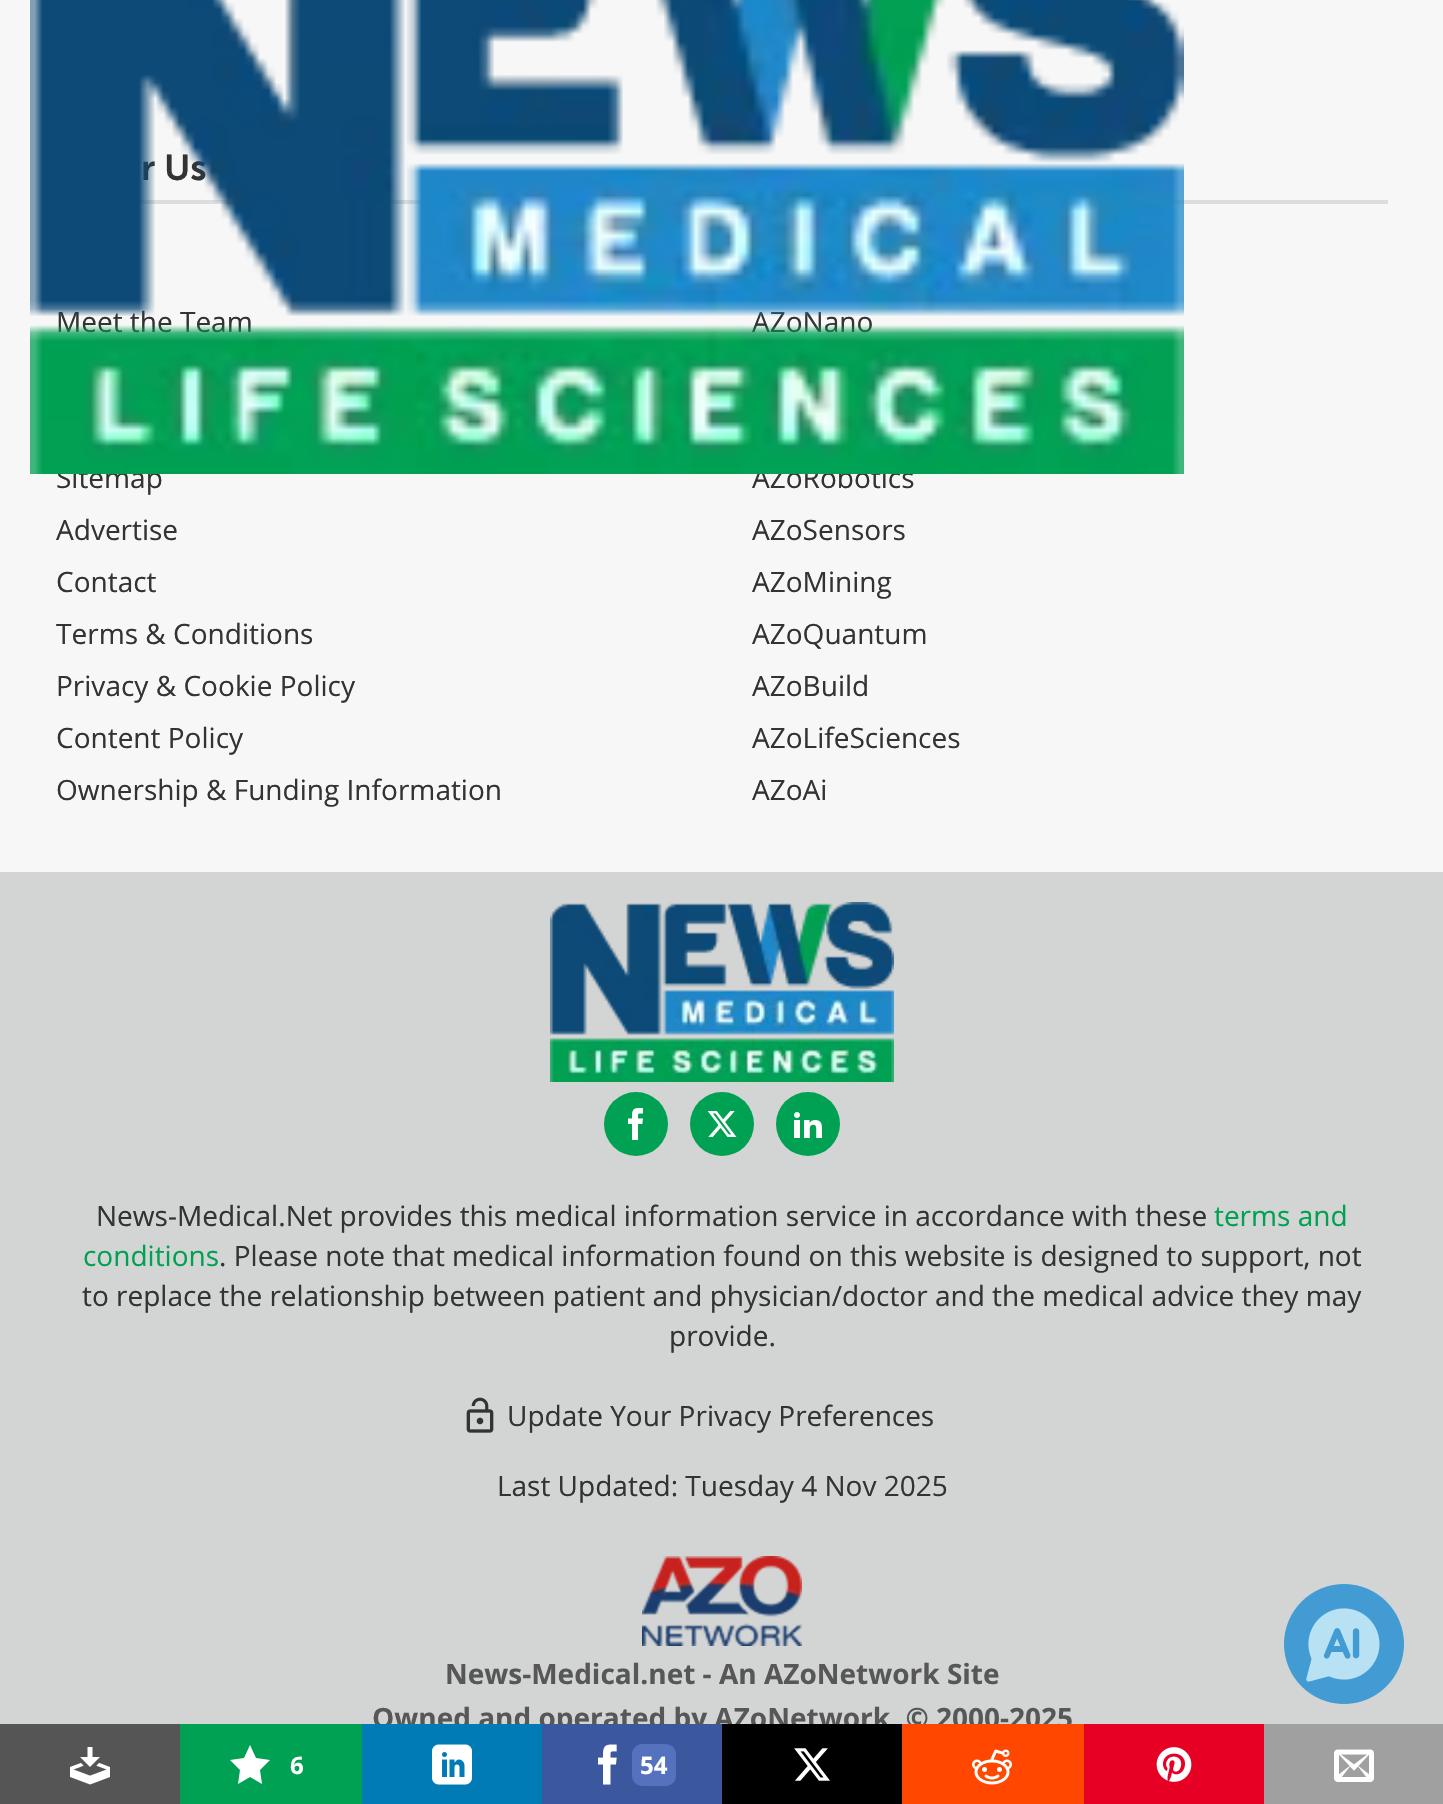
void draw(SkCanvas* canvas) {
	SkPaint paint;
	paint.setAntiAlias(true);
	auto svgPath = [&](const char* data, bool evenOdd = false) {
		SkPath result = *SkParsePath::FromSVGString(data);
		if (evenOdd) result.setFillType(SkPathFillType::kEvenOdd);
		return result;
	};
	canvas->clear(0xfff7f7f7);
	paint.setColor(0xffdddddd);
	canvas->drawRect(SkRect::MakeXYWH(139, 200, 282, 4), paint);
	SkFont f1(fontMgr->matchFamilyStyle("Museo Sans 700", SkFontStyle(600, SkFontStyle::kNormal_Width, SkFontStyle::kUpright_Slant)), 36);
	f1.setSubpixel(true);
	paint.setColor(0xff333333);
	canvas->drawString("r Us", 141, 180, f1, paint);
	SkFont f2(fontMgr->matchFamilyStyle("Open Sans", SkFontStyle::Normal()), 28);
	f2.setSubpixel(true);
	canvas->drawString("Meet the Team", 56, 332, f2, paint);
	canvas->drawString("Sitemap", 56, 488, f2, paint);
	paint.setColor(0xffdddddd);
	canvas->drawRect(SkRect::MakeXYWH(1172, 200, 216, 4), paint);
	paint.setColor(0xff333333);
	canvas->drawString("AZoNano", 752, 332, f2, paint);
	canvas->drawString("AZoRobotics", 752, 488, f2, paint);
	canvas->drawImageRect(SkImages::DeferredFromEncodedData(SkData::MakeFromFileName("img1.png")), SkRect::MakeXYWH(30, 0, 1154, 474), SkSamplingOptions());
	canvas->drawString("Advertise", 56, 540, f2, paint);
	canvas->drawString("Contact", 56, 592, f2, paint);
	canvas->drawString("Terms & Conditions", 56, 644, f2, paint);
	canvas->drawString("Privacy & Cookie Policy", 56, 696, f2, paint);
	canvas->drawString("Content Policy", 56, 748, f2, paint);
	canvas->drawString("Ownership & Funding Information", 56, 800, f2, paint);
	canvas->drawString("AZoSensors", 752, 540, f2, paint);
	canvas->drawString("AZoMining", 752, 592, f2, paint);
	canvas->drawString("AZoQuantum", 752, 644, f2, paint);
	canvas->drawString("AZoBuild", 752, 696, f2, paint);
	canvas->drawString("AZoLifeSciences", 752, 748, f2, paint);
	canvas->drawString("AZoAi", 752, 800, f2, paint);
	paint.setColor(0xffd3d4d4);
	canvas->drawRect(SkRect::MakeXYWH(0, 872, 1443, 852), paint);
	canvas->drawImageRect(SkImages::DeferredFromEncodedData(SkData::MakeFromFileName("img2.png")), SkRect::MakeXYWH(550, 902, 344, 180), SkSamplingOptions());
	paint.setColor(0xff00a153);
	canvas->drawCircle(636, 1124, 32, paint);
	canvas->drawImageRect(SkImages::DeferredFromEncodedData(SkData::MakeFromFileName("img3.png")), SkRect::MakeXYWH(628, 1108, 15, 32), SkSamplingOptions());
	canvas->drawCircle(722, 1124, 32, paint);
	canvas->drawImageRect(SkImages::DeferredFromEncodedData(SkData::MakeFromFileName("img4.png")), SkRect::MakeXYWH(707, 1111, 30, 26), SkSamplingOptions());
	canvas->drawCircle(808, 1124, 32, paint);
	canvas->drawImageRect(SkImages::DeferredFromEncodedData(SkData::MakeFromFileName("img5.png")), SkRect::MakeXYWH(794, 1112, 28, 26), SkSamplingOptions());
	paint.setColor(0xff333333);
	canvas->drawString("News-Medical.Net provides this medical information service in accordance with these", 96, 1226, f2, paint);
	paint.setColor(0xff00a153);
	canvas->drawString("terms and", 1214, 1226, f2, paint);
	canvas->drawString("conditions", 83, 1266, f2, paint);
	paint.setColor(0xff333333);
	canvas->drawString(". Please note that medical information found on this website is designed to support, not", 219, 1266, f2, paint);
	canvas->drawString("to replace the relationship between patient and physician/doctor and the medical advice they may", 82, 1306, f2, paint);
	canvas->drawString("provide.", 669, 1346, f2, paint);
	canvas->drawImageRect(SkImages::DeferredFromEncodedData(SkData::MakeFromFileName("img6.png")), SkRect::MakeXYWH(466, 1397, 28, 36), SkSamplingOptions());
	canvas->drawString("Update Your Privacy Preferences", 507, 1426, f2, paint);
	canvas->drawString("Last Updated: Tuesday 4 Nov 2025", 497, 1496, f2, paint);
	canvas->drawImageRect(SkImages::DeferredFromEncodedData(SkData::MakeFromFileName("img7.png")), SkRect::MakeXYWH(642, 1556, 160, 90), SkSamplingOptions());
	SkFont f3(fontMgr->matchFamilyStyle("Open Sans", SkFontStyle::Bold()), 28);
	f3.setSubpixel(true);
	paint.setColor(0xff575757);
	canvas->drawString("News-Medical.net - An AZoNetwork Site", 445, 1684, f3, paint);
	canvas->drawString("Owned and operated by AZoNetwork, © 2000-2025", 372, 1728, f3, paint);
	canvas->drawImageRect(SkImages::DeferredFromEncodedData(SkData::MakeFromFileName("img8.png")), SkRect::MakeXYWH(1284, 1584, 120, 120), SkSamplingOptions());
	paint.setColor(0xff555555);
	canvas->drawRect(SkRect::MakeXYWH(0, 1724, 180, 80), paint);
	canvas->drawImageRect(SkImages::DeferredFromEncodedData(SkData::MakeFromFileName("img9.png")), SkRect::MakeXYWH(70, 1747, 40, 38), SkSamplingOptions());
	paint.setColor(0xff00a153);
	canvas->drawRect(SkRect::MakeXYWH(180, 1724, 182, 80), paint);
	paint.setColor(0xffffffff);
	canvas->drawPath(svgPath("M270 1760L256 1758L250 1745L244 1758L230 1760L240 1770L238 1784L250 1777L262 1784L260 1770Z"), paint);
	SkFont f4(fontMgr->matchFamilyStyle("Open Sans", SkFontStyle::Bold()), 24);
	f4.setSubpixel(true);
	canvas->drawString("6", 290, 1774, f4, paint);
	paint.setColor(0xff007bb6);
	canvas->drawRect(SkRect::MakeXYWH(362, 1724, 180, 80), paint);
	canvas->drawImageRect(SkImages::DeferredFromEncodedData(SkData::MakeFromFileName("img10.png")), SkRect::MakeXYWH(432, 1744, 40, 41), SkSamplingOptions());
	paint.setColor(0xff3b579d);
	canvas->drawRect(SkRect::MakeXYWH(542, 1724, 180, 80), paint);
	canvas->drawImageRect(SkImages::DeferredFromEncodedData(SkData::MakeFromFileName("img11.png")), SkRect::MakeXYWH(598, 1744, 19, 41), SkSamplingOptions());
	paint.setColor(0xff5472be);
	canvas->drawRoundRect(SkRect::MakeXYWH(632, 1744, 44, 42), 10, 10, paint);
	paint.setColor(0xffffffff);
	canvas->drawString("54", 640, 1774, f4, paint);
	paint.setColor(0xff000000);
	canvas->drawRect(SkRect::MakeXYWH(722, 1724, 180, 80), paint);
	canvas->drawImageRect(SkImages::DeferredFromEncodedData(SkData::MakeFromFileName("img12.png")), SkRect::MakeXYWH(794, 1748, 36, 33), SkSamplingOptions());
	paint.setColor(0xffff4700);
	canvas->drawRect(SkRect::MakeXYWH(902, 1724, 182, 80), paint);
	canvas->drawImageRect(SkImages::DeferredFromEncodedData(SkData::MakeFromFileName("img13.png")), SkRect::MakeXYWH(972, 1749, 40, 36), SkSamplingOptions());
	paint.setColor(0xffe60023);
	canvas->drawRect(SkRect::MakeXYWH(1084, 1724, 180, 80), paint);
	canvas->drawImageRect(SkImages::DeferredFromEncodedData(SkData::MakeFromFileName("img14.png")), SkRect::MakeXYWH(1156, 1747, 36, 35), SkSamplingOptions());
	paint.setColor(0xffa0a0a0);
	canvas->drawRect(SkRect::MakeXYWH(1264, 1724, 179, 80), paint);
	canvas->drawImageRect(SkImages::DeferredFromEncodedData(SkData::MakeFromFileName("img15.png")), SkRect::MakeXYWH(1334, 1749, 40, 33), SkSamplingOptions());
}
